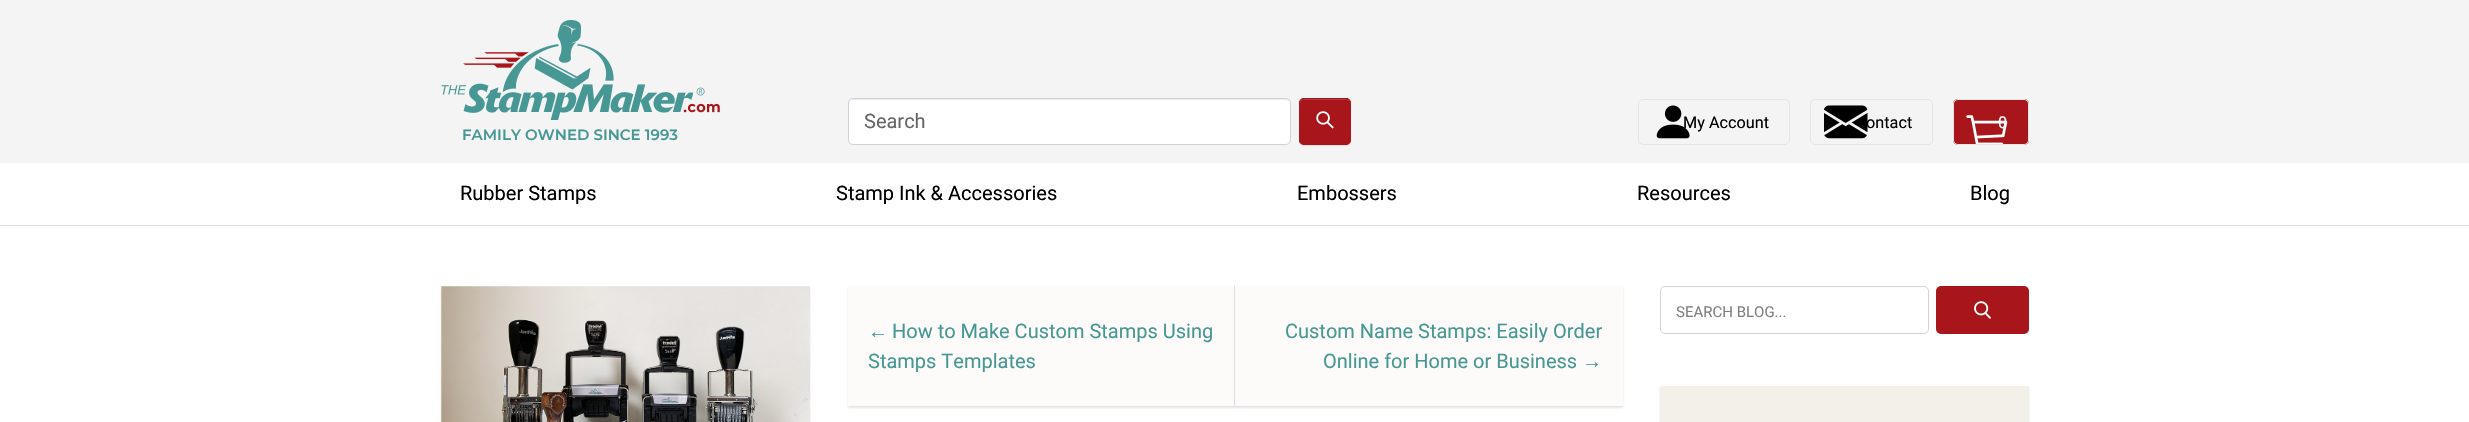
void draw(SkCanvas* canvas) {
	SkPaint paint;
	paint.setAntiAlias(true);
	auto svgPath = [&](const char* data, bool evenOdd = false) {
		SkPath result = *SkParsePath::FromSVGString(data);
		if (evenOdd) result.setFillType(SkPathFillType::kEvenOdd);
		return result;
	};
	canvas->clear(0xffffffff);
	paint.setColor(0xffdee2e6);
	canvas->drawRect(SkRect::MakeXYWH(0, 225, 2469, 1), paint);
	paint.setColor(0xfff4f4f4);
	canvas->drawRect(SkRect::MakeXYWH(0, 0, 2469, 163), paint);
	paint.setColor(0xffffffff);
	canvas->drawRoundRect(SkRect::MakeXYWH(849, 99, 441, 45), 4, 4, paint);
	paint.setColor(0x12000000);
	canvas->drawPath(svgPath("M852 100H1286C1288 100 1290 102 1290 104C1290 101 1289 99 1286 99H853L851 100L850 101L849 104C849 102 850 100 852 100Z"), paint);
	paint.setStroke(true);
	paint.setStrokeWidth(1);
	paint.setColor(0xffced4da);
	canvas->drawRoundRect(SkRect::MakeXYWH(848.5, 98.5, 442, 46), 4.5, 4.5, paint);
	SkFont f1(fontMgr->matchFamilyStyle("Roboto", SkFontStyle::Normal()), 20);
	f1.setSubpixel(true);
	paint.setStroke(false);
	paint.setColor(0xff666666);
	canvas->drawString("Search", 864, 128, f1, paint);
	paint.setColor(0x12000000);
	paint.setMaskFilter(SkMaskFilter::MakeBlur(kNormal_SkBlurStyle, 0.5));
	canvas->drawRoundRect(SkRect::MakeXYWH(1299, 99, 52, 47), 5, 5, paint);
	paint.setMaskFilter(nullptr);
	paint.setColor(0xffa8151a);
	canvas->drawRoundRect(SkRect::MakeXYWH(1299, 98, 52, 47), 5, 5, paint);
	paint.setColor(0xffb5383c);
	canvas->drawPath(svgPath("M1304 100H1346C1348 100 1350 102 1350 104C1350 98 1344 99 1339 99H1311C1306 99 1300 98 1300 104C1300 102 1302 100 1304 100Z"), paint);
	paint.setStroke(true);
	paint.setColor(0xffa8151a);
	canvas->drawRoundRect(SkRect::MakeXYWH(1299.5, 98.5, 51, 46), 4.5, 4.5, paint);
	canvas->drawImageRect(SkImages::DeferredFromEncodedData(SkData::MakeFromFileName("img1.png")), SkRect::MakeXYWH(1316, 111, 18, 18), SkSamplingOptions());
	canvas->drawImageRect(SkImages::DeferredFromEncodedData(SkData::MakeFromFileName("img2.png")), SkRect::MakeXYWH(1656, 105, 34, 34), SkSamplingOptions());
	paint.setColor(0xffe5e5e5);
	canvas->drawRoundRect(SkRect::MakeXYWH(1638.5, 99.5, 151, 45), 4.5, 4.5, paint);
	SkFont f2(fontMgr->matchFamilyStyle("Roboto", SkFontStyle::Normal()), 16.25);
	f2.setSubpixel(true);
	paint.setStroke(false);
	paint.setColor(0xff000000);
	canvas->drawString("My Account", 1683, 128, f2, paint);
	canvas->drawImageRect(SkImages::DeferredFromEncodedData(SkData::MakeFromFileName("img3.png")), SkRect::MakeXYWH(1824, 105, 44, 34), SkSamplingOptions());
	paint.setStroke(true);
	paint.setColor(0xffe5e5e5);
	canvas->drawRoundRect(SkRect::MakeXYWH(1810.5, 99.5, 122, 45), 4.5, 4.5, paint);
	paint.setStroke(false);
	paint.setColor(0xff000000);
	canvas->drawString("ontact", 1866, 128, f2, paint);
	paint.setColor(0xffa8151a);
	canvas->drawRoundRect(SkRect::MakeXYWH(1953, 99, 76, 46), 5, 5, paint);
	canvas->drawImageRect(SkImages::DeferredFromEncodedData(SkData::MakeFromFileName("img4.png")), SkRect::MakeXYWH(1966, 115, 42, 29), SkSamplingOptions());
	paint.setStroke(true);
	paint.setColor(0xffe5e5e5);
	canvas->drawRoundRect(SkRect::MakeXYWH(1953.5, 99.5, 75, 45), 4.5, 4.5, paint);
	paint.setStroke(false);
	paint.setColor(0xffffffff);
	canvas->drawString("0", 1998, 128, f2, paint);
	canvas->drawImageRect(SkImages::DeferredFromEncodedData(SkData::MakeFromFileName("img5.png")), SkRect::MakeXYWH(441, 20, 279, 100), SkSamplingOptions());
	SkFont f3(fontMgr->matchFamilyStyle("Montserrat", SkFontStyle(600, SkFontStyle::kNormal_Width, SkFontStyle::kUpright_Slant)), 15);
	f3.setSubpixel(true);
	paint.setColor(0xff479794);
	canvas->drawString("FAMILY OWNED SINCE 1993", 462, 140, f3, paint);
	paint.setColor(0xff000000);
	canvas->drawString("Rubber Stamps", 460, 200, f1, paint);
	canvas->drawString("Stamp Ink & Accessories", 836, 200, f1, paint);
	canvas->drawString("Embossers", 1297, 200, f1, paint);
	canvas->drawString("Resources", 1637, 200, f1, paint);
	canvas->drawString("Blog", 1970, 200, f1, paint);
	paint.setColor(0x1a000000);
	paint.setMaskFilter(SkMaskFilter::MakeBlur(kNormal_SkBlurStyle, 1));
	canvas->drawRect(SkRect::MakeXYWH(441, 288, 369, 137), paint);
	paint.setMaskFilter(nullptr);
	paint.setColor(0xfff9f8f4);
	canvas->drawRect(SkRect::MakeXYWH(441, 286, 369, 136), paint);
	canvas->drawImageRect(SkImages::DeferredFromEncodedData(SkData::MakeFromFileName("img6.png")), SkRect::MakeXYWH(441, 286, 369, 136), SkSamplingOptions());
	paint.setStroke(true);
	paint.setColor(0xffced4da);
	canvas->drawRoundRect(SkRect::MakeXYWH(1660.5, 286.5, 268, 47), 4.5, 4.5, paint);
	SkFont f4(fontMgr->matchFamilyStyle("Roboto", SkFontStyle::Normal()), 15);
	f4.setSubpixel(true);
	paint.setStroke(false);
	paint.setColor(0xff808080);
	canvas->drawString("SEARCH BLOG...", 1676, 317, f4, paint);
	paint.setColor(0xffa8151a);
	canvas->drawRoundRect(SkRect::MakeXYWH(1936, 286, 93, 48), 5, 5, paint);
	canvas->drawImageRect(SkImages::DeferredFromEncodedData(SkData::MakeFromFileName("img7.png")), SkRect::MakeXYWH(1974, 301, 17, 18), SkSamplingOptions());
	paint.setColor(0x1a000000);
	paint.setMaskFilter(SkMaskFilter::MakeBlur(kNormal_SkBlurStyle, 1));
	canvas->drawRect(SkRect::MakeXYWH(1660, 388, 369, 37), paint);
	paint.setMaskFilter(nullptr);
	paint.setColor(0xfff3f0e9);
	canvas->drawRect(SkRect::MakeXYWH(1660, 386, 369, 36), paint);
	paint.setColor(0x1a000000);
	paint.setMaskFilter(SkMaskFilter::MakeBlur(kNormal_SkBlurStyle, 1));
	canvas->drawRect(SkRect::MakeXYWH(848, 288, 775, 120), paint);
	paint.setMaskFilter(nullptr);
	paint.setColor(0xfffcfbf9);
	canvas->drawRect(SkRect::MakeXYWH(848, 286, 775, 120), paint);
	paint.setColor(0xffdddddd);
	canvas->drawRect(SkRect::MakeXYWH(1234, 286, 1, 120), paint);
	SkFont f5(fontMgr->matchFamilyStyle("Liberation Sans", SkFontStyle::Normal()), 20);
	f5.setSubpixel(true);
	paint.setColor(0xff479794);
	canvas->drawString("←", 868, 338, f5, paint);
	canvas->drawString("How to Make Custom Stamps Using", 892, 338, f1, paint);
	canvas->drawString("Stamps Templates", 868, 368, f1, paint);
	canvas->drawString("Custom Name Stamps: Easily Order", 1285, 338, f1, paint);
	canvas->drawString("Online for Home or Business", 1323, 368, f1, paint);
	canvas->drawString("→", 1582, 368, f5, paint);
}
